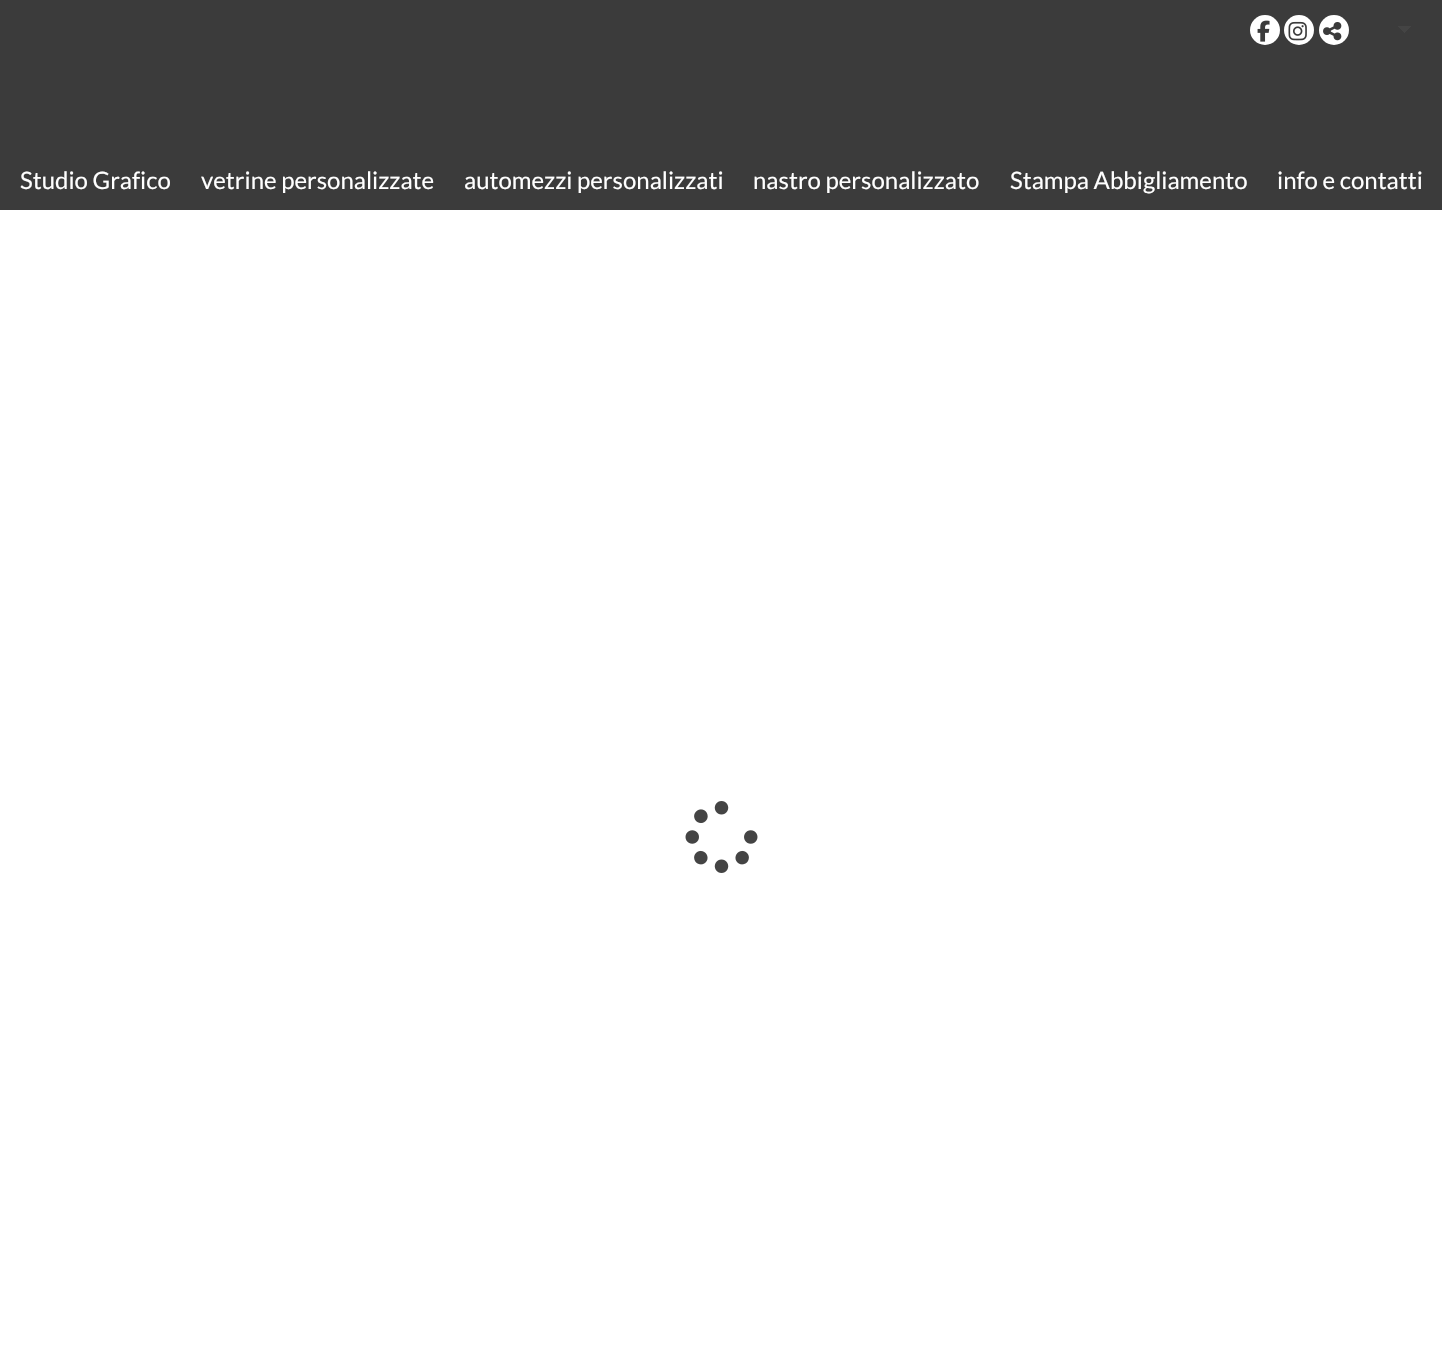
void draw(SkCanvas* canvas) {
	SkPaint paint;
	paint.setAntiAlias(true);
	canvas->clear(0xffffffff);
	paint.setColor(0xff3b3b3b);
	canvas->drawRect(SkRect::MakeXYWH(0, 0, 1442, 210), paint);
	paint.setColor(0xffffffff);
	canvas->drawCircle(1265, 30, 15, paint);
	canvas->drawImageRect(SkImages::DeferredFromEncodedData(SkData::MakeFromFileName("img1.png")), SkRect::MakeXYWH(1257, 20, 13, 22), SkSamplingOptions());
	canvas->drawCircle(1299, 30, 15, paint);
	canvas->drawImageRect(SkImages::DeferredFromEncodedData(SkData::MakeFromFileName("img2.png")), SkRect::MakeXYWH(1288, 21, 19, 20), SkSamplingOptions());
	canvas->drawCircle(1334, 30, 15, paint);
	canvas->drawImageRect(SkImages::DeferredFromEncodedData(SkData::MakeFromFileName("img3.png")), SkRect::MakeXYWH(1323, 22, 19, 19), SkSamplingOptions());
	{
		const SkColor colors[] = {0xff444444, 0xff3b3b3b};
		const float stops[] = {0.5, 0.5};
		const SkPoint ends[] = {{1404, 26}, {1412, 33}};
		paint.setShader(SkGradientShader::MakeLinear(ends, colors, stops, 2, SkTileMode::kClamp));
		paint.setAlpha(255);
	}
	canvas->drawRect(SkRect::MakeXYWH(1404, 26, 8, 7), paint);
	{
		const SkColor colors[] = {0xff3b3b3b, 0xff444444};
		const float stops[] = {0.5, 0.5};
		const SkPoint ends[] = {{1397, 33}, {1404, 26}};
		paint.setShader(SkGradientShader::MakeLinear(ends, colors, stops, 2, SkTileMode::kClamp));
		paint.setAlpha(255);
	}
	canvas->drawRect(SkRect::MakeXYWH(1397, 26, 7, 6), paint);
	SkFont f1(fontMgr->matchFamilyStyle("Lato", SkFontStyle::Normal()), 24);
	f1.setSubpixel(true);
	paint.setShader(nullptr);
	paint.setColor(0xffffffff);
	canvas->drawString("Studio Grafico", 20, 189, f1, paint);
	canvas->drawString("vetrine personalizzate", 201, 189, f1, paint);
	canvas->drawString("automezzi personalizzati", 464, 189, f1, paint);
	canvas->drawString("nastro personalizzato", 753, 189, f1, paint);
	canvas->drawString("Stampa Abbigliamento", 1010, 189, f1, paint);
	canvas->drawString("info e contatti", 1277, 189, f1, paint);
	canvas->drawImageRect(SkImages::DeferredFromEncodedData(SkData::MakeFromFileName("img4.png")), SkRect::MakeXYWH(685, 801, 73, 72), SkSamplingOptions());
}
